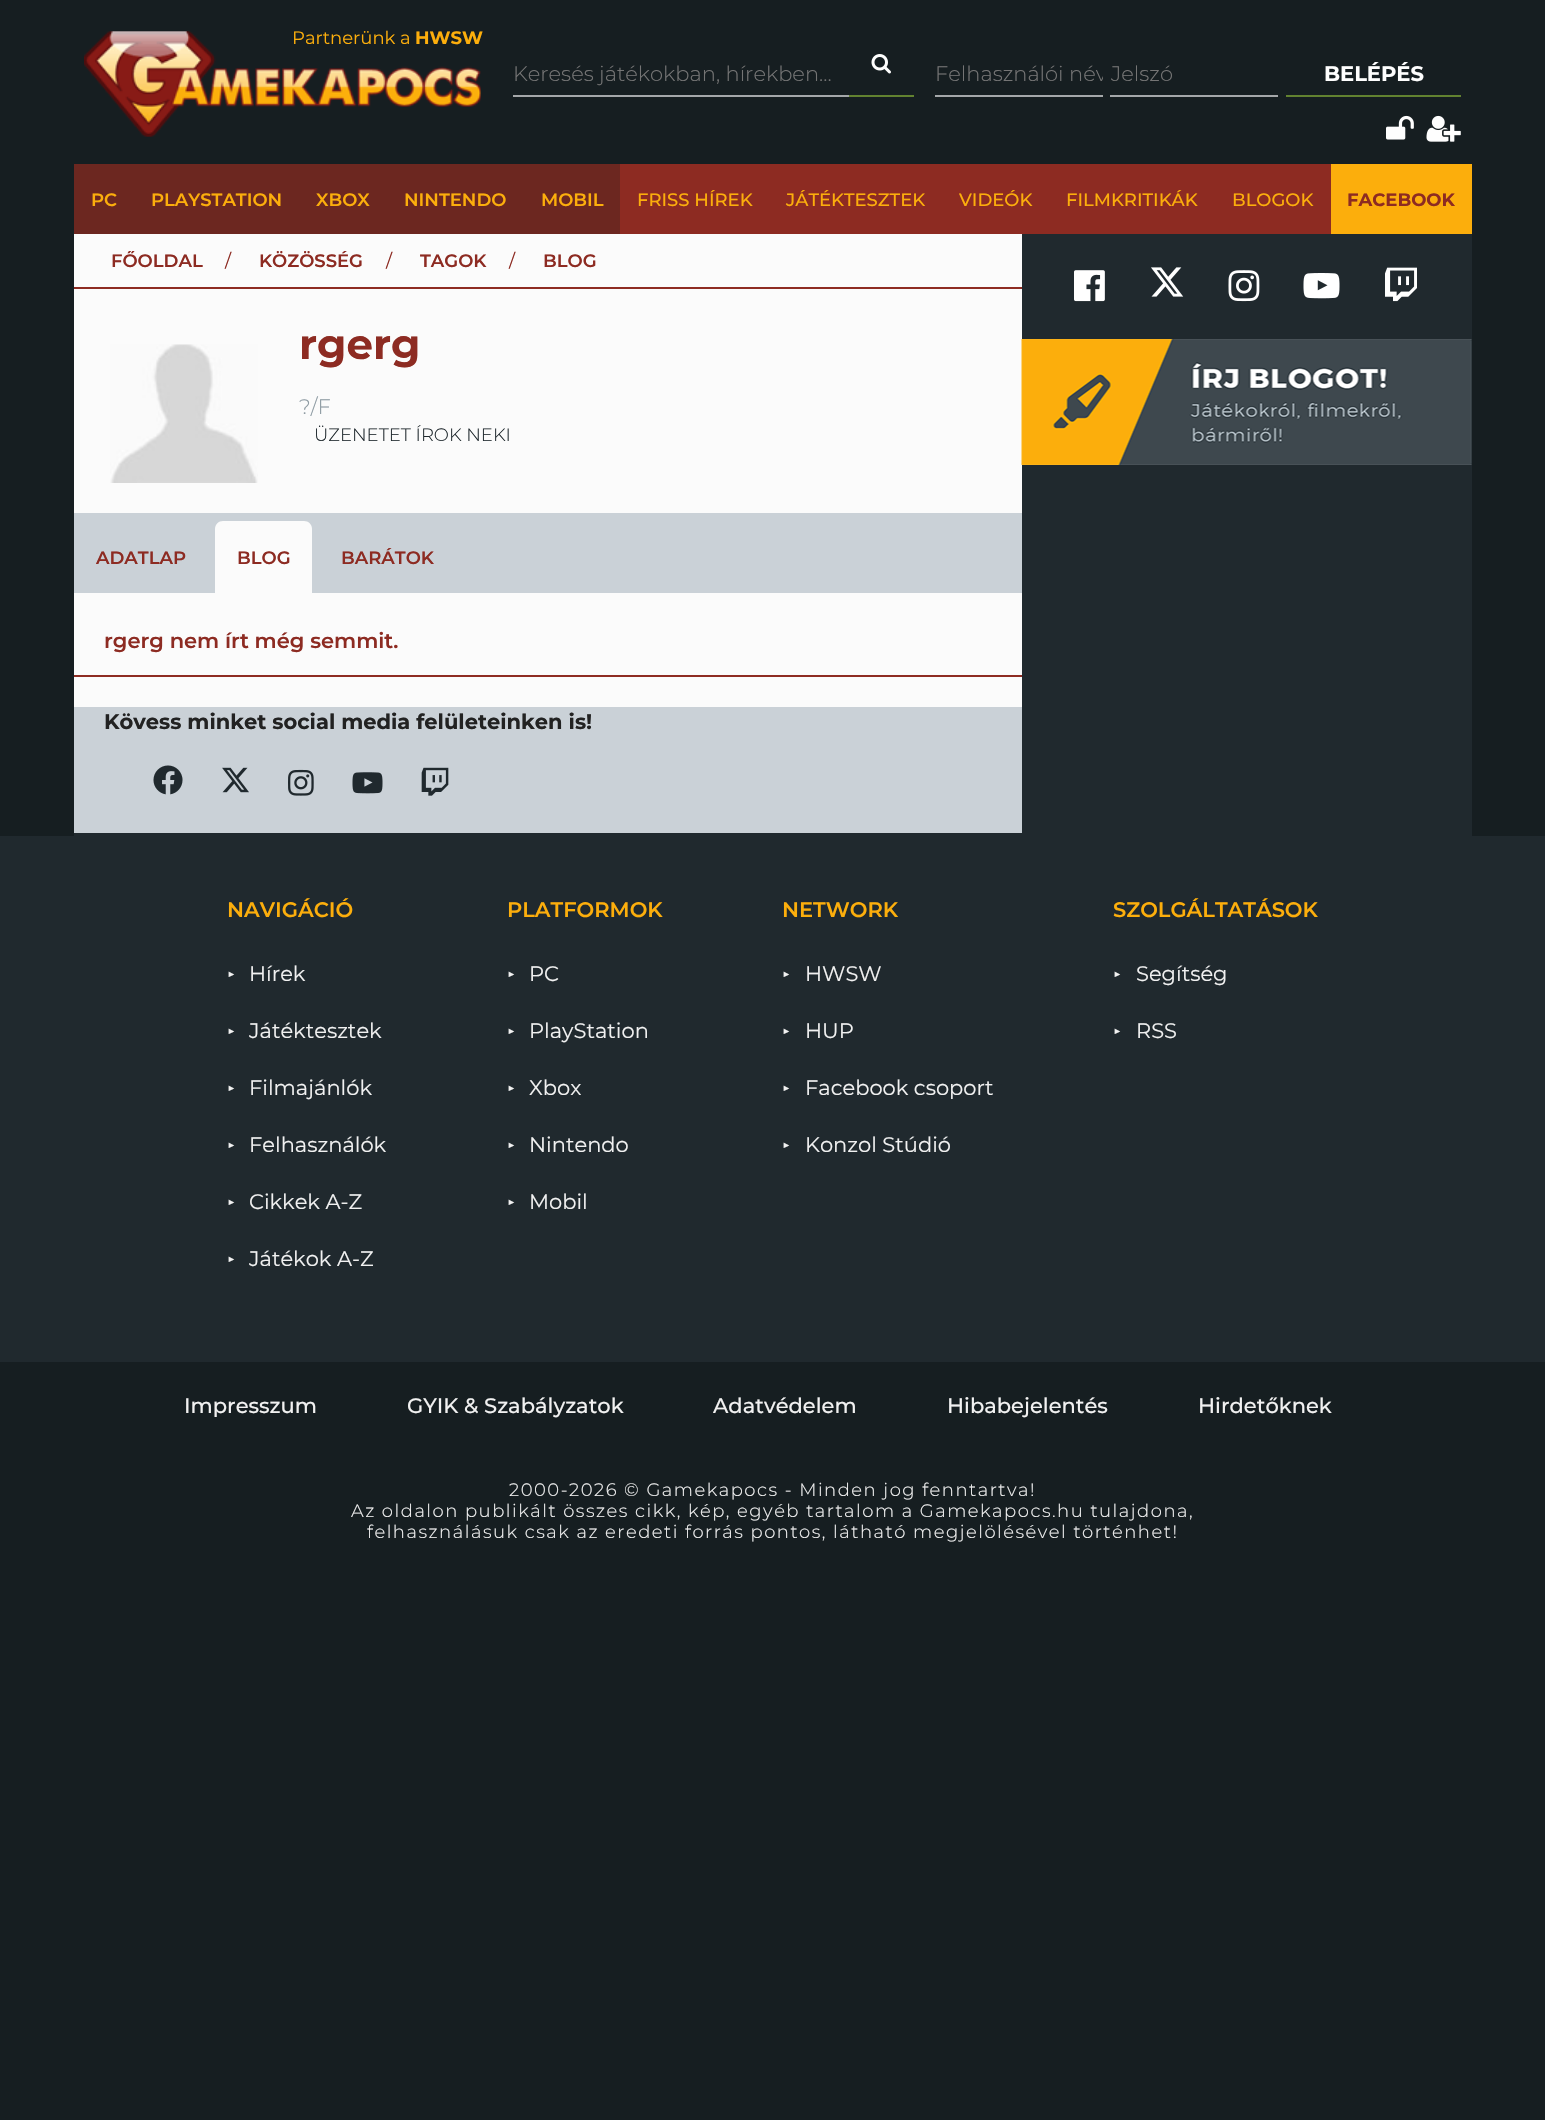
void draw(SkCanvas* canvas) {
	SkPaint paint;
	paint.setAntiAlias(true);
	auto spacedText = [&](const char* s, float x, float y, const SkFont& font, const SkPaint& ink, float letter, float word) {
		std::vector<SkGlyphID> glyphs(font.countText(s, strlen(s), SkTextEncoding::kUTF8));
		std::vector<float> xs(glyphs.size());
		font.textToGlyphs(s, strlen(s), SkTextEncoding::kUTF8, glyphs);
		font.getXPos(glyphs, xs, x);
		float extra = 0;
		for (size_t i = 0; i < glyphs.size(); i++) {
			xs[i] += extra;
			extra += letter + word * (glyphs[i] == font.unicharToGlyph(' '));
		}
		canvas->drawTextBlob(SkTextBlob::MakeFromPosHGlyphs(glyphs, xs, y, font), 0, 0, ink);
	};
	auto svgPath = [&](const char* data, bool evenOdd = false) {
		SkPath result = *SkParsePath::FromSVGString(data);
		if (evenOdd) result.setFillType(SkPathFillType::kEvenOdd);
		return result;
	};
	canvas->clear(0xff161e21);
	canvas->drawImageRect(SkImages::DeferredFromEncodedData(SkData::MakeFromFileName("img1.png")), SkRect::MakeXYWH(84, 31, 397, 106), SkSamplingOptions());
	SkFont f1(fontMgr->matchFamilyStyle("Montserrat", SkFontStyle::Normal()), 18);
	f1.setSubpixel(true);
	paint.setColor(0xfffcae0c);
	canvas->drawString("Partnerünk a", 292, 44, f1, paint);
	SkFont f2(fontMgr->matchFamilyStyle("Montserrat", SkFontStyle::Bold()), 18);
	f2.setSubpixel(true);
	canvas->drawString("HWSW", 415, 44, f2, paint);
	paint.setColor(0xffa4a7a9);
	canvas->drawRect(SkRect::MakeXYWH(513, 95, 336, 2), paint);
	SkFont f3(fontMgr->matchFamilyStyle("Montserrat", SkFontStyle(300, SkFontStyle::kNormal_Width, SkFontStyle::kUpright_Slant)), 21);
	f3.setSubpixel(true);
	paint.setColor(0xff757575);
	canvas->drawString("Keresés játékokban, hírekben...", 513, 81, f3, paint);
	paint.setColor(0xff628230);
	canvas->drawRect(SkRect::MakeXYWH(849, 95, 65, 2), paint);
	canvas->drawImageRect(SkImages::DeferredFromEncodedData(SkData::MakeFromFileName("img2.png")), SkRect::MakeXYWH(871, 54, 20, 20), SkSamplingOptions());
	paint.setColor(0xffa4a7a9);
	canvas->drawRect(SkRect::MakeXYWH(935, 95, 168, 2), paint);
	canvas->save();
	canvas->clipRect(SkRect::MakeXYWH(935, 60, 168, 27));
	paint.setColor(0xff757575);
	canvas->drawString("Felhasználói név", 935, 81, f3, paint);
	canvas->restore();
	paint.setColor(0xffa4a7a9);
	canvas->drawRect(SkRect::MakeXYWH(1110, 95, 168, 2), paint);
	paint.setColor(0xff757575);
	canvas->drawString("Jelszó", 1111, 81, f3, paint);
	paint.setColor(0xff628230);
	canvas->drawRect(SkRect::MakeXYWH(1286, 95, 175, 2), paint);
	SkFont f4(fontMgr->matchFamilyStyle("Montserrat", SkFontStyle::Bold()), 21);
	f4.setSubpixel(true);
	paint.setColor(0xfffefefe);
	canvas->drawString("BELÉPÉS", 1324, 81, f4, paint);
	canvas->drawImageRect(SkImages::DeferredFromEncodedData(SkData::MakeFromFileName("img3.png")), SkRect::MakeXYWH(1386, 115, 28, 25), SkSamplingOptions());
	canvas->drawImageRect(SkImages::DeferredFromEncodedData(SkData::MakeFromFileName("img4.png")), SkRect::MakeXYWH(1426, 115, 35, 27), SkSamplingOptions());
	paint.setColor(0xff6c2720);
	canvas->drawRect(SkRect::MakeXYWH(74, 164, 546, 70), paint);
	SkFont f5(fontMgr->matchFamilyStyle("Montserrat", SkFontStyle(600, SkFontStyle::kNormal_Width, SkFontStyle::kUpright_Slant)), 18);
	f5.setSubpixel(true);
	paint.setColor(0xfffcae0c);
	canvas->drawString("PC", 91, 206, f5, paint);
	canvas->drawString("PLAYSTATION", 151, 206, f5, paint);
	canvas->drawString("XBOX", 316, 206, f5, paint);
	canvas->drawString("NINTENDO", 404, 206, f5, paint);
	canvas->drawString("MOBIL", 541, 206, f5, paint);
	paint.setColor(0xff8d2b22);
	canvas->drawRect(SkRect::MakeXYWH(620, 164, 711, 70), paint);
	SkFont f6(fontMgr->matchFamilyStyle("Montserrat", SkFontStyle(500, SkFontStyle::kNormal_Width, SkFontStyle::kUpright_Slant)), 18);
	f6.setSubpixel(true);
	paint.setColor(0xfffcae0c);
	canvas->drawString("FRISS HÍREK", 637, 206, f6, paint);
	canvas->drawString("JÁTÉKTESZTEK", 786, 206, f6, paint);
	canvas->drawString("VIDEÓK", 959, 206, f6, paint);
	canvas->drawString("FILMKRITIKÁK", 1066, 206, f6, paint);
	canvas->drawString("BLOGOK", 1232, 206, f6, paint);
	canvas->drawRect(SkRect::MakeXYWH(1331, 164, 141, 70), paint);
	paint.setColor(0xff8d2b22);
	canvas->drawString("FACEBOOK", 1347, 206, f2, paint);
	paint.setColor(0xfffbfbfb);
	canvas->drawRect(SkRect::MakeXYWH(74, 234, 948, 473), paint);
	paint.setColor(0xff8e2c23);
	canvas->drawRect(SkRect::MakeXYWH(74, 287, 948, 2), paint);
	paint.setColor(0xff8d2b22);
	canvas->drawString("FŐOLDAL", 111, 267, f5, paint);
	canvas->drawString("/", 225, 267, f1, paint);
	canvas->drawString("KÖZÖSSÉG", 259, 267, f5, paint);
	canvas->drawString("/", 386, 267, f1, paint);
	canvas->drawString("TAGOK", 420, 267, f5, paint);
	canvas->drawString("/", 509, 267, f1, paint);
	canvas->drawString("BLOG", 543, 267, f5, paint);
	canvas->drawImageRect(SkImages::DeferredFromEncodedData(SkData::MakeFromFileName("img5.png")), SkRect::MakeXYWH(110, 344, 148, 139), SkSamplingOptions());
	SkFont f7(fontMgr->matchFamilyStyle("Montserrat", SkFontStyle::Bold()), 42);
	f7.setSubpixel(true);
	canvas->drawString("rgerg", 299, 359, f7, paint);
	paint.setColor(0xff8e9ba3);
	canvas->drawString("?/F", 299, 414, f3, paint);
	SkFont f8(fontMgr->matchFamilyStyle("Montserrat", SkFontStyle(300, SkFontStyle::kNormal_Width, SkFontStyle::kUpright_Slant)), 18);
	f8.setSubpixel(true);
	paint.setColor(0xff20292e);
	canvas->drawString("ÜZENETET ÍROK NEKI", 314, 441, f8, paint);
	paint.setColor(0xffcad1d7);
	canvas->drawRect(SkRect::MakeXYWH(74, 513, 948, 80), paint);
	paint.setColor(0xff8d2b22);
	canvas->drawString("ADATLAP", 96, 564, f5, paint);
	paint.setColor(0xfffbfbfb);
	canvas->drawPath(svgPath("M223 521H304C308.5 521 312 524.5 312 529V593H215V529C215 524.5 218.5 521 223 521Z"), paint);
	paint.setColor(0xff8d2b22);
	canvas->drawString("BLOG", 237, 564, f5, paint);
	canvas->drawString("BARÁTOK", 341, 564, f5, paint);
	paint.setColor(0xff8e2c23);
	canvas->drawRect(SkRect::MakeXYWH(74, 675, 948, 2), paint);
	SkFont f9(fontMgr->matchFamilyStyle("Montserrat", SkFontStyle(600, SkFontStyle::kNormal_Width, SkFontStyle::kUpright_Slant)), 21);
	f9.setSubpixel(true);
	paint.setColor(0xff8d2b22);
	canvas->drawString("rgerg nem írt még semmit.", 104, 648, f9, paint);
	paint.setColor(0xffcad1d7);
	canvas->drawRect(SkRect::MakeXYWH(74, 707, 948, 126), paint);
	paint.setColor(0xff20292e);
	canvas->drawRect(SkRect::MakeXYWH(74, 833, 948, 3), paint);
	paint.setColor(0xff222222);
	canvas->drawString("Kövess minket social media felületeinken is!", 104, 729, f4, paint);
	canvas->drawImageRect(SkImages::DeferredFromEncodedData(SkData::MakeFromFileName("img6.png")), SkRect::MakeXYWH(153, 765, 30, 30), SkSamplingOptions());
	canvas->drawImageRect(SkImages::DeferredFromEncodedData(SkData::MakeFromFileName("img7.png")), SkRect::MakeXYWH(222, 767, 27, 26), SkSamplingOptions());
	canvas->drawImageRect(SkImages::DeferredFromEncodedData(SkData::MakeFromFileName("img8.png")), SkRect::MakeXYWH(288, 769, 26, 27), SkSamplingOptions());
	canvas->drawImageRect(SkImages::DeferredFromEncodedData(SkData::MakeFromFileName("img9.png")), SkRect::MakeXYWH(352, 772, 31, 22), SkSamplingOptions());
	canvas->drawImageRect(SkImages::DeferredFromEncodedData(SkData::MakeFromFileName("img10.png")), SkRect::MakeXYWH(421, 767, 28, 29), SkSamplingOptions());
	paint.setColor(0xff20292e);
	canvas->drawRect(SkRect::MakeXYWH(1022, 234, 450, 602), paint);
	canvas->drawImageRect(SkImages::DeferredFromEncodedData(SkData::MakeFromFileName("img11.png")), SkRect::MakeXYWH(1074, 270, 31, 32), SkSamplingOptions());
	canvas->drawImageRect(SkImages::DeferredFromEncodedData(SkData::MakeFromFileName("img12.png")), SkRect::MakeXYWH(1151, 267, 33, 30), SkSamplingOptions());
	canvas->drawImageRect(SkImages::DeferredFromEncodedData(SkData::MakeFromFileName("img13.png")), SkRect::MakeXYWH(1228, 270, 32, 32), SkSamplingOptions());
	canvas->drawImageRect(SkImages::DeferredFromEncodedData(SkData::MakeFromFileName("img14.png")), SkRect::MakeXYWH(1303, 273, 37, 26), SkSamplingOptions());
	canvas->drawImageRect(SkImages::DeferredFromEncodedData(SkData::MakeFromFileName("img15.png")), SkRect::MakeXYWH(1385, 267, 32, 35), SkSamplingOptions());
	canvas->drawImageRect(SkImages::DeferredFromEncodedData(SkData::MakeFromFileName("img16.png")), SkRect::MakeXYWH(1021, 339, 451, 126), SkSamplingOptions());
	canvas->drawRect(SkRect::MakeXYWH(0, 836, 1545, 526), paint);
	paint.setColor(0xfffcae0c);
	canvas->drawString("NAVIGÁCIÓ", 227, 917, f9, paint);
	SkFont f10(fontMgr->matchFamilyStyle("Liberation Serif", SkFontStyle::Normal()), 9);
	f10.setSubpixel(true);
	paint.setColor(0xfff1f1f1);
	canvas->drawString("►", 227, 977, f10, paint);
	SkFont f11(fontMgr->matchFamilyStyle("Montserrat", SkFontStyle::Normal()), 21);
	f11.setSubpixel(true);
	canvas->drawString("Hírek", 249, 981, f11, paint);
	canvas->drawString("►", 227, 1034, f10, paint);
	canvas->drawString("Játéktesztek", 249, 1038, f11, paint);
	canvas->drawString("►", 227, 1091, f10, paint);
	canvas->drawString("Filmajánlók", 249, 1095, f11, paint);
	canvas->drawString("►", 227, 1148, f10, paint);
	canvas->drawString("Felhasználók", 249, 1152, f11, paint);
	canvas->drawString("►", 227, 1205, f10, paint);
	canvas->drawString("Cikkek A-Z", 249, 1209, f11, paint);
	canvas->drawString("►", 227, 1262, f10, paint);
	canvas->drawString("Játékok A-Z", 249, 1266, f11, paint);
	paint.setColor(0xfffcae0c);
	canvas->drawString("PLATFORMOK", 507, 917, f9, paint);
	paint.setColor(0xfff1f1f1);
	canvas->drawString("►", 507, 977, f10, paint);
	canvas->drawString("PC", 529, 981, f11, paint);
	canvas->drawString("►", 507, 1034, f10, paint);
	canvas->drawString("PlayStation", 529, 1038, f11, paint);
	canvas->drawString("►", 507, 1091, f10, paint);
	canvas->drawString("Xbox", 529, 1095, f11, paint);
	canvas->drawString("►", 507, 1148, f10, paint);
	canvas->drawString("Nintendo", 529, 1152, f11, paint);
	canvas->drawString("►", 507, 1205, f10, paint);
	canvas->drawString("Mobil", 529, 1209, f11, paint);
	paint.setColor(0xfffcae0c);
	canvas->drawString("NETWORK", 782, 917, f9, paint);
	paint.setColor(0xfff1f1f1);
	canvas->drawString("►", 782, 977, f10, paint);
	canvas->drawString("HWSW", 805, 981, f11, paint);
	canvas->drawString("►", 782, 1034, f10, paint);
	canvas->drawString("HUP", 805, 1038, f11, paint);
	canvas->drawString("►", 782, 1091, f10, paint);
	canvas->drawString("Facebook csoport", 805, 1095, f11, paint);
	canvas->drawString("►", 782, 1148, f10, paint);
	canvas->drawString("Konzol Stúdió", 805, 1152, f11, paint);
	paint.setColor(0xfffcae0c);
	canvas->drawString("SZOLGÁLTATÁSOK", 1113, 917, f9, paint);
	paint.setColor(0xfff1f1f1);
	canvas->drawString("►", 1113, 977, f10, paint);
	canvas->drawString("Segítség", 1136, 981, f11, paint);
	canvas->drawString("►", 1113, 1034, f10, paint);
	canvas->drawString("RSS", 1136, 1038, f11, paint);
	SkFont f12(fontMgr->matchFamilyStyle("Montserrat", SkFontStyle(500, SkFontStyle::kNormal_Width, SkFontStyle::kUpright_Slant)), 21);
	f12.setSubpixel(true);
	canvas->drawString("Impresszum", 184, 1413, f12, paint);
	canvas->drawString("GYIK & Szabályzatok", 407, 1413, f12, paint);
	canvas->drawString("Adatvédelem", 713, 1413, f12, paint);
	canvas->drawString("Hibabejelentés", 947, 1413, f12, paint);
	canvas->drawString("Hirdetőknek", 1198, 1413, f12, paint);
	spacedText("2000-2026 © Gamekapocs - Minden jog fenntartva!", 509, 1496, f8, paint, 1.5, 0);
	spacedText("Az oldalon publikált összes cikk, kép, egyéb tartalom a Gamekapocs.hu tulajdona,", 351, 1517, f8, paint, 1.5, 0);
	spacedText("felhasználásuk csak az eredeti forrás pontos, látható megjelölésével történhet!", 367, 1538, f8, paint, 1.5, 0);
}
